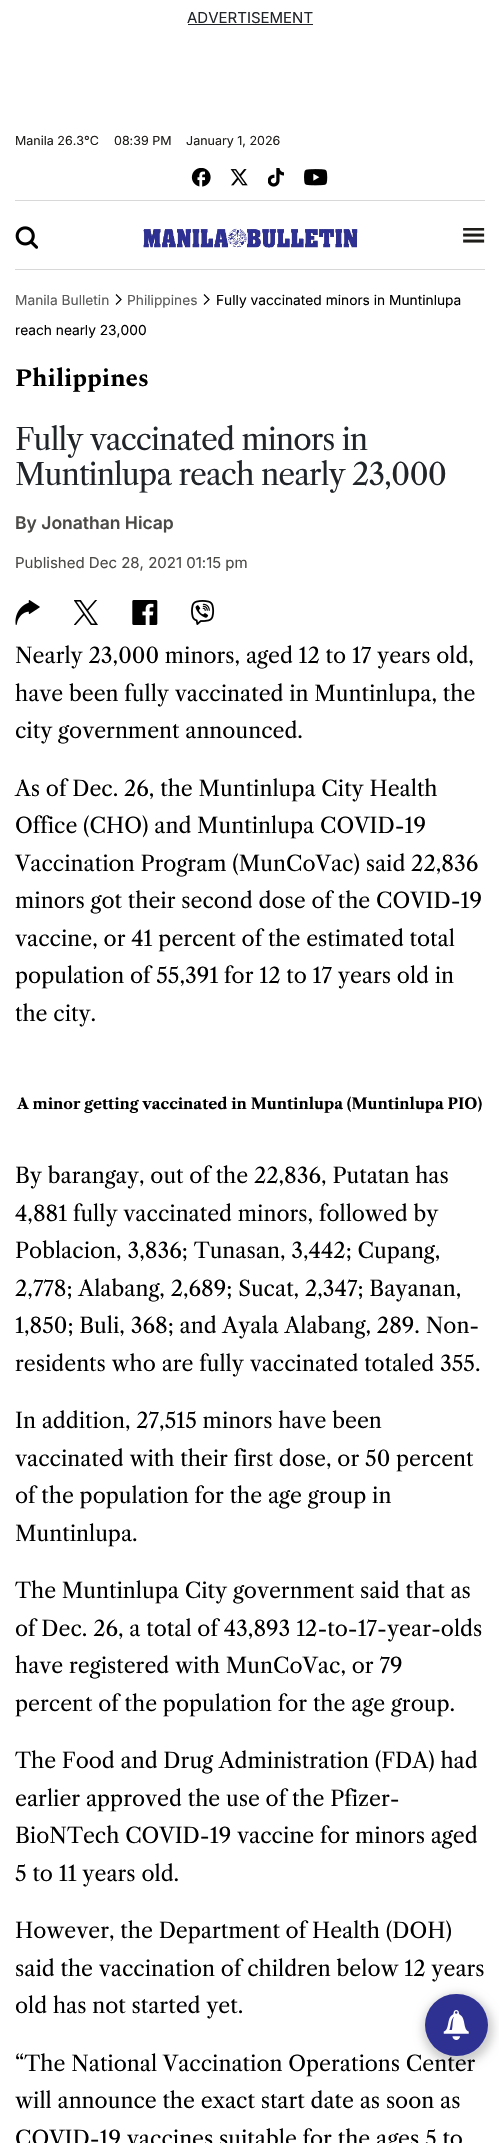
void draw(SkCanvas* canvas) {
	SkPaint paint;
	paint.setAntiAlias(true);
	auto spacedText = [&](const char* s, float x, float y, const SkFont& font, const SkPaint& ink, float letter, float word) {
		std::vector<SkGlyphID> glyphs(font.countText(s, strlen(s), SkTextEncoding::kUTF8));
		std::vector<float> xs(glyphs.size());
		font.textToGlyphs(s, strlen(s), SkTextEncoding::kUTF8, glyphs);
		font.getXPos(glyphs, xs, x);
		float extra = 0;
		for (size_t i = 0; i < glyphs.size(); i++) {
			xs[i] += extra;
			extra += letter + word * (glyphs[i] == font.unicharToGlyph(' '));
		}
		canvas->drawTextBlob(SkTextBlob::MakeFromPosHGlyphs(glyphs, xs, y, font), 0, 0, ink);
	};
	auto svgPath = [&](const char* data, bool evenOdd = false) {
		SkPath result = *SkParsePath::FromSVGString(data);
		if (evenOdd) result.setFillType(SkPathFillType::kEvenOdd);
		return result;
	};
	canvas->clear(0xffffffff);
	SkFont f1(fontMgr->matchFamilyStyle("Inter", SkFontStyle::Normal()), 15);
	f1.setSubpixel(true);
	paint.setColor(0xff212529);
	canvas->drawString("ADVERTISEMENT", 187, 23, f1, paint);
	canvas->drawRect(SkRect::MakeXYWH(188, 24, 125, 1), paint);
	SkFont f2(fontMgr->matchFamilyStyle("Inter", SkFontStyle::Normal()), 12.5);
	f2.setSubpixel(true);
	paint.setColor(0xff1f1d1a);
	canvas->drawString("Manila 26.3°C", 15, 145, f2, paint);
	canvas->drawString("08:39 PM", 114, 145, f2, paint);
	canvas->drawString("January 1, 2026", 186, 145, f2, paint);
	canvas->drawImageRect(SkImages::DeferredFromEncodedData(SkData::MakeFromFileName("img1.png")), SkRect::MakeXYWH(191, 168, 20, 19), SkSamplingOptions());
	canvas->drawImageRect(SkImages::DeferredFromEncodedData(SkData::MakeFromFileName("img2.png")), SkRect::MakeXYWH(230, 169, 18, 17), SkSamplingOptions());
	canvas->drawImageRect(SkImages::DeferredFromEncodedData(SkData::MakeFromFileName("img3.png")), SkRect::MakeXYWH(268, 168, 16, 19), SkSamplingOptions());
	canvas->drawImageRect(SkImages::DeferredFromEncodedData(SkData::MakeFromFileName("img4.png")), SkRect::MakeXYWH(304, 169, 24, 17), SkSamplingOptions());
	paint.setColor(0xffd8d8d8);
	canvas->drawRect(SkRect::MakeXYWH(15, 200, 470, 1), paint);
	canvas->drawRect(SkRect::MakeXYWH(15, 269, 470, 1), paint);
	canvas->drawImageRect(SkImages::DeferredFromEncodedData(SkData::MakeFromFileName("img5.png")), SkRect::MakeXYWH(15, 226, 23, 23), SkSamplingOptions());
	canvas->drawImageRect(SkImages::DeferredFromEncodedData(SkData::MakeFromFileName("img6.png")), SkRect::MakeXYWH(143, 228, 215, 20), SkSamplingOptions());
	canvas->drawImageRect(SkImages::DeferredFromEncodedData(SkData::MakeFromFileName("img7.png")), SkRect::MakeXYWH(463, 228, 22, 15), SkSamplingOptions());
	SkFont f3(fontMgr->matchFamilyStyle("Inter", SkFontStyle::Normal()), 13.75);
	f3.setSubpixel(true);
	paint.setColor(0xff5a5a5a);
	canvas->drawString("Manila Bulletin", 15, 305, f3, paint);
	paint.setStroke(true);
	paint.setStrokeWidth(1.2);
	paint.setColor(0xff000000);
	canvas->drawPath(svgPath("M116 294.5L121 299.5L116 304.5"), paint);
	paint.setStroke(false);
	paint.setColor(0xff5a5a5a);
	canvas->drawString("Philippines", 127, 305, f3, paint);
	paint.setStroke(true);
	paint.setColor(0xff000000);
	canvas->drawPath(svgPath("M204 294.5L209 299.5L204 304.5"), paint);
	paint.setStroke(false);
	canvas->drawString("Fully vaccinated minors in Muntinlupa", 216, 305, f3, paint);
	canvas->drawString("reach nearly 23,000", 15, 335, f3, paint);
	SkFont f4(fontMgr->matchFamilyStyle("Spectral", SkFontStyle::Bold()), 25);
	f4.setSubpixel(true);
	canvas->drawString("Philippines", 15, 386, f4, paint);
	SkFont f5(fontMgr->matchFamilyStyle("Libre Caslon Text", SkFontStyle::Normal()), 30);
	f5.setSubpixel(true);
	paint.setColor(0xff212529);
	spacedText("Fully vaccinated minors in", 15, 450, f5, paint, -0.9, 0);
	spacedText("Muntinlupa reach nearly 23,000", 15, 485, f5, paint, -0.9, 0);
	SkFont f6(fontMgr->matchFamilyStyle("Inter", SkFontStyle(600, SkFontStyle::kNormal_Width, SkFontStyle::kUpright_Slant)), 17.5);
	f6.setSubpixel(true);
	paint.setColor(0xff4b4a47);
	canvas->drawString("By Jonathan Hicap", 15, 529, f6, paint);
	canvas->drawString("Published Dec 28, 2021 01:15 pm", 15, 568, f1, paint);
	canvas->drawImageRect(SkImages::DeferredFromEncodedData(SkData::MakeFromFileName("img8.png")), SkRect::MakeXYWH(15, 600, 25, 25), SkSamplingOptions());
	canvas->drawImageRect(SkImages::DeferredFromEncodedData(SkData::MakeFromFileName("img9.png")), SkRect::MakeXYWH(74, 600, 24, 25), SkSamplingOptions());
	canvas->drawImageRect(SkImages::DeferredFromEncodedData(SkData::MakeFromFileName("img10.png")), SkRect::MakeXYWH(132, 600, 26, 25), SkSamplingOptions());
	canvas->drawImageRect(SkImages::DeferredFromEncodedData(SkData::MakeFromFileName("img11.png")), SkRect::MakeXYWH(191, 600, 24, 25), SkSamplingOptions());
	SkFont f7(fontMgr->matchFamilyStyle("Libre Caslon Text", SkFontStyle::Normal()), 21.25);
	f7.setSubpixel(true);
	paint.setColor(0xff000000);
	canvas->drawString("Nearly 23,000 minors, aged 12 to 17 years old,", 15, 663, f7, paint);
	canvas->drawString("have been fully vaccinated in Muntinlupa, the", 15, 701, f7, paint);
	canvas->drawString("city government announced.", 15, 738, f7, paint);
	canvas->drawString("As of Dec. 26, the Muntinlupa City Health", 15, 796, f7, paint);
	canvas->drawString("Office (CHO) and Muntinlupa COVID-19", 15, 833, f7, paint);
	canvas->drawString("Vaccination Program (MunCoVac) said 22,836", 15, 871, f7, paint);
	canvas->drawString("minors got their second dose of the COVID-19", 15, 908, f7, paint);
	canvas->drawString("vaccine, or 41 percent of the estimated total", 15, 946, f7, paint);
	canvas->drawString("population of 55,391 for 12 to 17 years old in", 15, 983, f7, paint);
	canvas->drawString("the city.", 15, 1021, f7, paint);
	SkFont f8(fontMgr->matchFamilyStyle("Libre Caslon Text", SkFontStyle::Bold()), 15);
	f8.setSubpixel(true);
	canvas->drawString("A minor getting vaccinated in Muntinlupa (Muntinlupa PIO)", 17, 1109, f8, paint);
	canvas->drawString("By barangay, out of the 22,836, Putatan has", 15, 1183, f7, paint);
	canvas->drawString("4,881 fully vaccinated minors, followed by", 15, 1221, f7, paint);
	canvas->drawString("Poblacion, 3,836; Tunasan, 3,442; Cupang,", 15, 1258, f7, paint);
	canvas->drawString("2,778; Alabang, 2,689; Sucat, 2,347; Bayanan,", 15, 1296, f7, paint);
	canvas->drawString("1,850; Buli, 368; and Ayala Alabang, 289. Non-", 15, 1333, f7, paint);
	canvas->drawString("residents who are fully vaccinated totaled 355.", 15, 1371, f7, paint);
	canvas->drawString("In addition, 27,515 minors have been", 15, 1428, f7, paint);
	canvas->drawString("vaccinated with their first dose, or 50 percent", 15, 1466, f7, paint);
	canvas->drawString("of the population for the age group in", 15, 1503, f7, paint);
	canvas->drawString("Muntinlupa.", 15, 1541, f7, paint);
	canvas->drawString("The Muntinlupa City government said that as", 15, 1598, f7, paint);
	canvas->drawString("of Dec. 26, a total of 43,893 12-to-17-year-olds", 15, 1636, f7, paint);
	canvas->drawString("have registered with MunCoVac, or 79", 15, 1673, f7, paint);
	canvas->drawString("percent of the population for the age group.", 15, 1711, f7, paint);
	canvas->drawString("The Food and Drug Administration (FDA) had", 15, 1768, f7, paint);
	canvas->drawString("earlier approved the use of the Pfizer-", 15, 1806, f7, paint);
	canvas->drawString("BioNTech COVID-19 vaccine for minors aged", 15, 1843, f7, paint);
	canvas->drawString("5 to 11 years old.", 15, 1881, f7, paint);
	canvas->drawString("However, the Department of Health (DOH)", 15, 1938, f7, paint);
	canvas->drawString("said the vaccination of children below 12 years", 15, 1976, f7, paint);
	canvas->drawString("old has not started yet.", 15, 2013, f7, paint);
	canvas->drawString("“The National Vaccination Operations Center", 15, 2071, f7, paint);
	canvas->drawString("will announce the exact start date as soon as", 15, 2108, f7, paint);
	canvas->drawString("COVID-19 vaccines suitable for the ages 5 to", 15, 2146, f7, paint);
	paint.setColor(0x33000000);
	paint.setMaskFilter(SkMaskFilter::MakeBlur(kNormal_SkBlurStyle, 5));
	canvas->drawRoundRect(SkRect::MakeXYWH(423, 1994, 70, 70), 35, 35, paint);
	paint.setMaskFilter(nullptr);
	paint.setColor(0xff2e3192);
	canvas->drawRoundRect(SkRect::MakeXYWH(425, 1994, 63, 62), 31, 31, paint);
	canvas->drawImageRect(SkImages::DeferredFromEncodedData(SkData::MakeFromFileName("img12.png")), SkRect::MakeXYWH(443, 2010, 26, 30), SkSamplingOptions());
}
